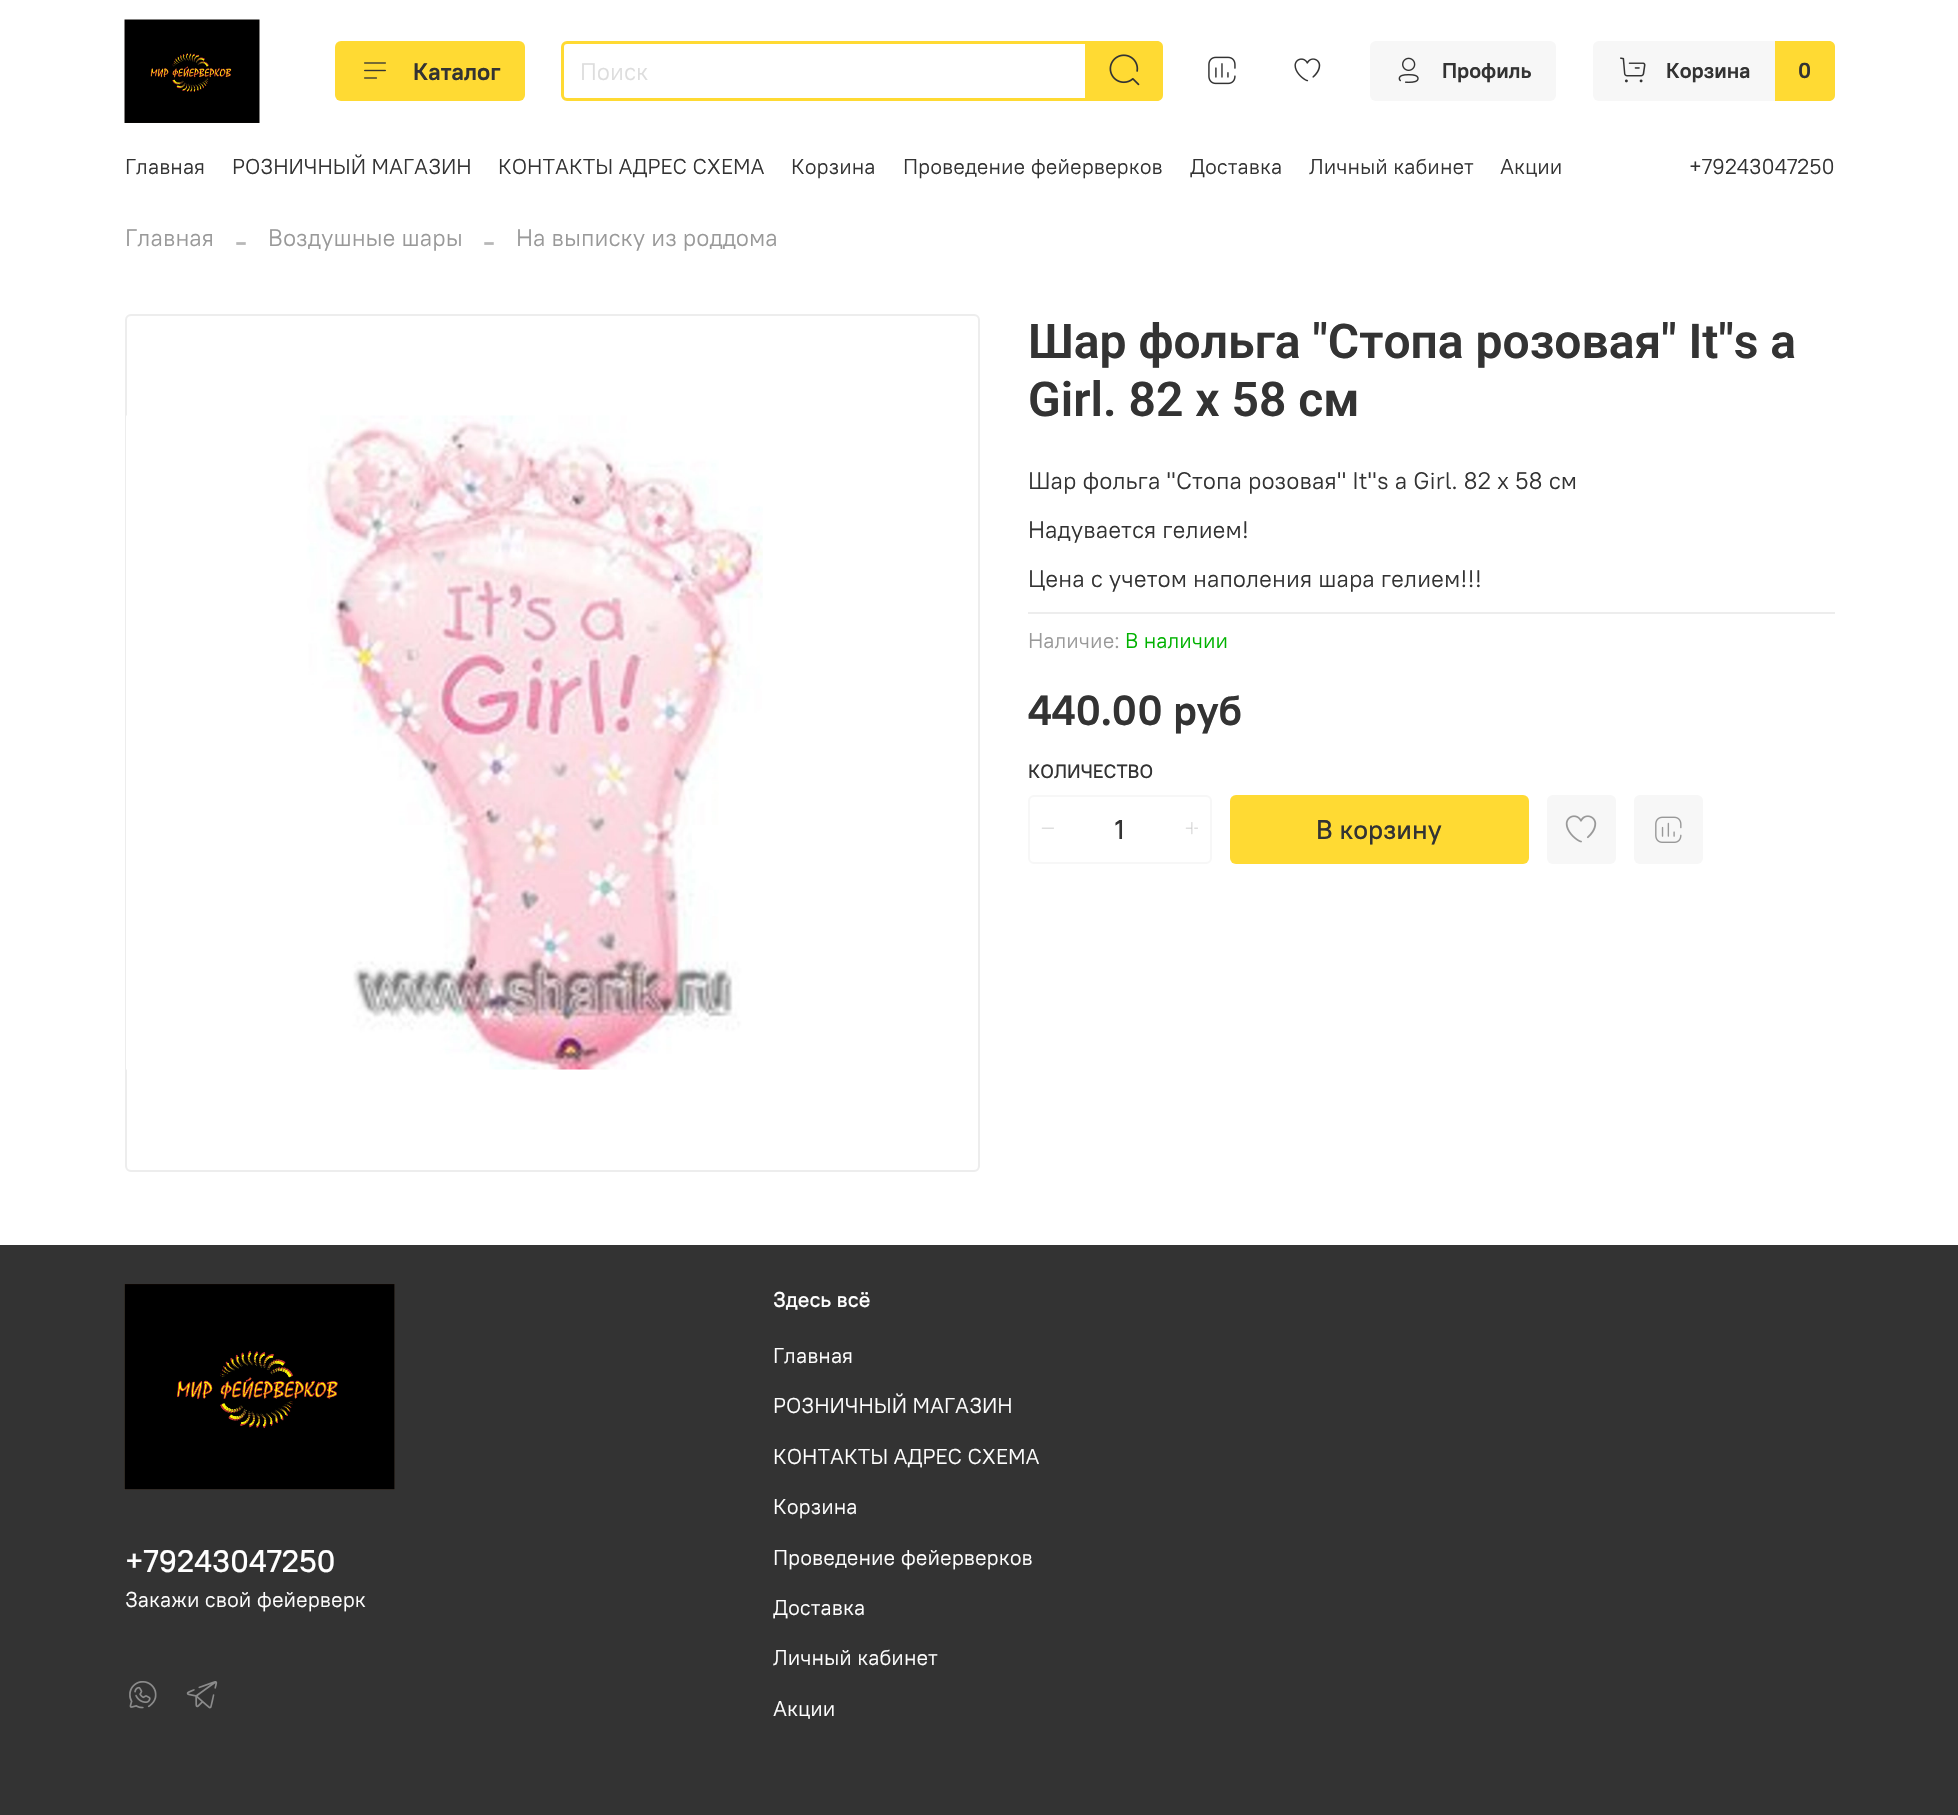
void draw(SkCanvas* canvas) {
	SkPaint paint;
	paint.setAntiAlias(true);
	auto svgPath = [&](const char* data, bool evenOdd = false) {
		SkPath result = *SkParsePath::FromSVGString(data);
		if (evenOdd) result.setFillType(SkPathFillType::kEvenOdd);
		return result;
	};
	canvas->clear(0xffffffff);
	canvas->drawImageRect(SkImages::DeferredFromEncodedData(SkData::MakeFromFileName("img1.png")), SkRect::MakeXYWH(124, 19, 136, 104), SkSamplingOptions());
	paint.setColor(0xffffda33);
	canvas->drawRoundRect(SkRect::MakeXYWH(335, 41, 190, 60), 6, 6, paint);
	canvas->drawImageRect(SkImages::DeferredFromEncodedData(SkData::MakeFromFileName("img2.png")), SkRect::MakeXYWH(364, 62, 22, 17), SkSamplingOptions());
	SkFont f1(fontMgr->matchFamilyStyle("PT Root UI", SkFontStyle::Bold()), 24);
	f1.setSubpixel(true);
	paint.setColor(0xff333333);
	canvas->drawString("Каталог", 413, 80, f1, paint);
	paint.setStroke(true);
	paint.setStrokeWidth(3);
	paint.setColor(0xffffda33);
	canvas->drawPath(svgPath("M567 42.5H1086.5V99.5H567C564.5 99.5 562.5 97.5 562.5 95V47C562.5 44.5 564.5 42.5 567 42.5Z"), paint);
	SkFont f2(fontMgr->matchFamilyStyle("PT Root UI", SkFontStyle::Normal()), 24);
	f2.setSubpixel(true);
	paint.setStroke(false);
	paint.setColor(0xffdddddd);
	canvas->drawString("Поиск", 580, 80, f2, paint);
	paint.setColor(0xffffda33);
	canvas->drawPath(svgPath("M1088 41H1157C1160.5 41 1163 43.5 1163 47V95C1163 98.5 1160.5 101 1157 101H1088Z"), paint);
	canvas->drawImageRect(SkImages::DeferredFromEncodedData(SkData::MakeFromFileName("img3.png")), SkRect::MakeXYWH(1109, 54, 31, 32), SkSamplingOptions());
	canvas->drawImageRect(SkImages::DeferredFromEncodedData(SkData::MakeFromFileName("img4.png")), SkRect::MakeXYWH(1208, 56, 28, 29), SkSamplingOptions());
	canvas->drawImageRect(SkImages::DeferredFromEncodedData(SkData::MakeFromFileName("img5.png")), SkRect::MakeXYWH(1294, 58, 27, 24), SkSamplingOptions());
	paint.setColor(0xfff7f7f7);
	canvas->drawRoundRect(SkRect::MakeXYWH(1370, 41, 186, 60), 6, 6, paint);
	canvas->drawImageRect(SkImages::DeferredFromEncodedData(SkData::MakeFromFileName("img6.png")), SkRect::MakeXYWH(1398, 57, 21, 26), SkSamplingOptions());
	SkFont f3(fontMgr->matchFamilyStyle("PT Root UI", SkFontStyle::Bold()), 21.6);
	f3.setSubpixel(true);
	paint.setColor(0xff333333);
	canvas->drawString("Профиль", 1442, 78, f3, paint);
	paint.setColor(0xfff7f7f7);
	canvas->drawRoundRect(SkRect::MakeXYWH(1593, 41, 242, 60), 6, 6, paint);
	canvas->drawImageRect(SkImages::DeferredFromEncodedData(SkData::MakeFromFileName("img7.png")), SkRect::MakeXYWH(1620, 57, 26, 26), SkSamplingOptions());
	paint.setColor(0xff333333);
	canvas->drawString("Корзина", 1666, 78, f3, paint);
	paint.setColor(0xffffda33);
	canvas->drawPath(svgPath("M1775 41H1829C1832.5 41 1835 43.5 1835 47V95C1835 98.5 1832.5 101 1829 101H1775Z"), paint);
	paint.setColor(0xff333333);
	canvas->drawString("0", 1798, 78, f3, paint);
	SkFont f4(fontMgr->matchFamilyStyle("PT Root UI", SkFontStyle::Normal()), 21.6);
	f4.setSubpixel(true);
	canvas->drawString("Главная", 125, 174, f4, paint);
	canvas->drawString("РОЗНИЧНЫЙ МАГАЗИН", 232, 174, f4, paint);
	canvas->drawString("КОНТАКТЫ АДРЕС СХЕМА", 498, 174, f4, paint);
	canvas->drawString("Корзина", 791, 174, f4, paint);
	canvas->drawString("Проведение фейерверков", 903, 174, f4, paint);
	canvas->drawString("Доставка", 1190, 174, f4, paint);
	canvas->drawString("Личный кабинет", 1309, 174, f4, paint);
	canvas->drawString("Акции", 1500, 174, f4, paint);
	canvas->drawString("+79243047250", 1689, 174, f4, paint);
	paint.setColor(0xff999999);
	canvas->drawString("Главная", 125, 246, f2, paint);
	SkFont f5(fontMgr->matchFamilyStyle("Liberation Serif", SkFontStyle::Normal()), 36);
	f5.setSubpixel(true);
	paint.setColor(0xffb8b8b8);
	canvas->drawString("-", 235, 252, f5, paint);
	paint.setColor(0xff999999);
	canvas->drawString("Воздушные шары", 268, 246, f2, paint);
	paint.setColor(0xffb8b8b8);
	canvas->drawString("-", 483, 252, f5, paint);
	paint.setColor(0xff999999);
	canvas->drawString("На выписку из роддома", 516, 246, f2, paint);
	paint.setStroke(true);
	paint.setStrokeWidth(2);
	paint.setColor(0xffededed);
	canvas->drawRoundRect(SkRect::MakeXYWH(126, 315, 853, 856), 5, 5, paint);
	canvas->drawImageRect(SkImages::DeferredFromEncodedData(SkData::MakeFromFileName("img8.png")), SkRect::MakeXYWH(126, 415, 637, 655), SkSamplingOptions());
	SkFont f6(fontMgr->matchFamilyStyle("Roboto", SkFontStyle(600, SkFontStyle::kNormal_Width, SkFontStyle::kUpright_Slant)), 48);
	f6.setSubpixel(true);
	paint.setStroke(false);
	paint.setColor(0xff333333);
	canvas->drawString("Шар фольга \"Стопа розовая\" It\"s a", 1028, 358, f6, paint);
	canvas->drawString("Girl. 82 х 58 см", 1028, 416, f6, paint);
	paint.setColor(0xffededed);
	canvas->drawRect(SkRect::MakeXYWH(1028, 612, 807, 2), paint);
	paint.setColor(0xff333333);
	canvas->drawString("Шар фольга \"Стопа розовая\" It\"s a Girl. 82 х 58 см", 1028, 489, f2, paint);
	canvas->drawString("Надувается гелием!", 1028, 538, f2, paint);
	canvas->drawString("Цена с учетом наполения шара гелием!!!", 1028, 587, f2, paint);
	paint.setColor(0xff999999);
	canvas->drawString("Наличие:", 1028, 648, f4, paint);
	paint.setColor(0xff00b200);
	canvas->drawString("В наличии", 1125, 648, f4, paint);
	SkFont f7(fontMgr->matchFamilyStyle("PT Root UI", SkFontStyle::Bold()), 42);
	f7.setSubpixel(true);
	paint.setColor(0xff333333);
	canvas->drawString("440.00 руб", 1028, 725, f7, paint);
	SkFont f8(fontMgr->matchFamilyStyle("PT Root UI", SkFontStyle(500, SkFontStyle::kNormal_Width, SkFontStyle::kUpright_Slant)), 19.25);
	f8.setSubpixel(true);
	canvas->drawString("КОЛИЧЕСТВО", 1028, 778, f8, paint);
	paint.setStroke(true);
	paint.setColor(0xfff7f7f7);
	canvas->drawRoundRect(SkRect::MakeXYWH(1029, 796, 182, 67), 5, 5, paint);
	canvas->drawImageRect(SkImages::DeferredFromEncodedData(SkData::MakeFromFileName("img9.png")), SkRect::MakeXYWH(1041, 827, 13, 2), SkSamplingOptions());
	SkFont f9(fontMgr->matchFamilyStyle("PT Root UI", SkFontStyle(500, SkFontStyle::kNormal_Width, SkFontStyle::kUpright_Slant)), 27);
	f9.setSubpixel(true);
	paint.setStroke(false);
	paint.setColor(0xff333333);
	canvas->drawString("1", 1115, 839, f9, paint);
	canvas->drawImageRect(SkImages::DeferredFromEncodedData(SkData::MakeFromFileName("img10.png")), SkRect::MakeXYWH(1185, 822, 13, 13), SkSamplingOptions());
	paint.setColor(0xffffda33);
	canvas->drawRoundRect(SkRect::MakeXYWH(1230, 795, 299, 69), 6, 6, paint);
	paint.setColor(0xff333333);
	canvas->drawString("В корзину", 1316, 839, f9, paint);
	paint.setColor(0xfff7f7f7);
	canvas->drawRoundRect(SkRect::MakeXYWH(1547, 795, 69, 69), 6, 6, paint);
	canvas->drawImageRect(SkImages::DeferredFromEncodedData(SkData::MakeFromFileName("img11.png")), SkRect::MakeXYWH(1565, 815, 32, 28), SkSamplingOptions());
	canvas->drawRoundRect(SkRect::MakeXYWH(1634, 795, 69, 69), 6, 6, paint);
	canvas->drawImageRect(SkImages::DeferredFromEncodedData(SkData::MakeFromFileName("img12.png")), SkRect::MakeXYWH(1655, 816, 27, 27), SkSamplingOptions());
	paint.setColor(0xff333333);
	canvas->drawRect(SkRect::MakeXYWH(0, 1245, 1958, 570), paint);
	canvas->drawImageRect(SkImages::DeferredFromEncodedData(SkData::MakeFromFileName("img13.png")), SkRect::MakeXYWH(124, 1284, 271, 206), SkSamplingOptions());
	SkFont f10(fontMgr->matchFamilyStyle("PT Root UI", SkFontStyle(500, SkFontStyle::kNormal_Width, SkFontStyle::kUpright_Slant)), 31.25);
	f10.setSubpixel(true);
	paint.setColor(0xffffffff);
	canvas->drawString("+79243047250", 125, 1572, f10, paint);
	canvas->drawString("Закажи свой фейерверк", 125, 1607, f4, paint);
	canvas->drawImageRect(SkImages::DeferredFromEncodedData(SkData::MakeFromFileName("img14.png")), SkRect::MakeXYWH(129, 1681, 28, 28), SkSamplingOptions());
	canvas->drawImageRect(SkImages::DeferredFromEncodedData(SkData::MakeFromFileName("img15.png")), SkRect::MakeXYWH(186, 1681, 32, 28), SkSamplingOptions());
	SkFont f11(fontMgr->matchFamilyStyle("PT Root UI", SkFontStyle(500, SkFontStyle::kNormal_Width, SkFontStyle::kUpright_Slant)), 21.6);
	f11.setSubpixel(true);
	canvas->drawString("Здесь всё", 773, 1307, f11, paint);
	canvas->drawString("Главная", 773, 1363, f4, paint);
	canvas->drawString("РОЗНИЧНЫЙ МАГАЗИН", 773, 1413, f4, paint);
	canvas->drawString("КОНТАКТЫ АДРЕС СХЕМА", 773, 1464, f4, paint);
	canvas->drawString("Корзина", 773, 1514, f4, paint);
	canvas->drawString("Проведение фейерверков", 773, 1565, f4, paint);
	canvas->drawString("Доставка", 773, 1615, f4, paint);
	canvas->drawString("Личный кабинет", 773, 1665, f4, paint);
	canvas->drawString("Акции", 773, 1716, f4, paint);
}
